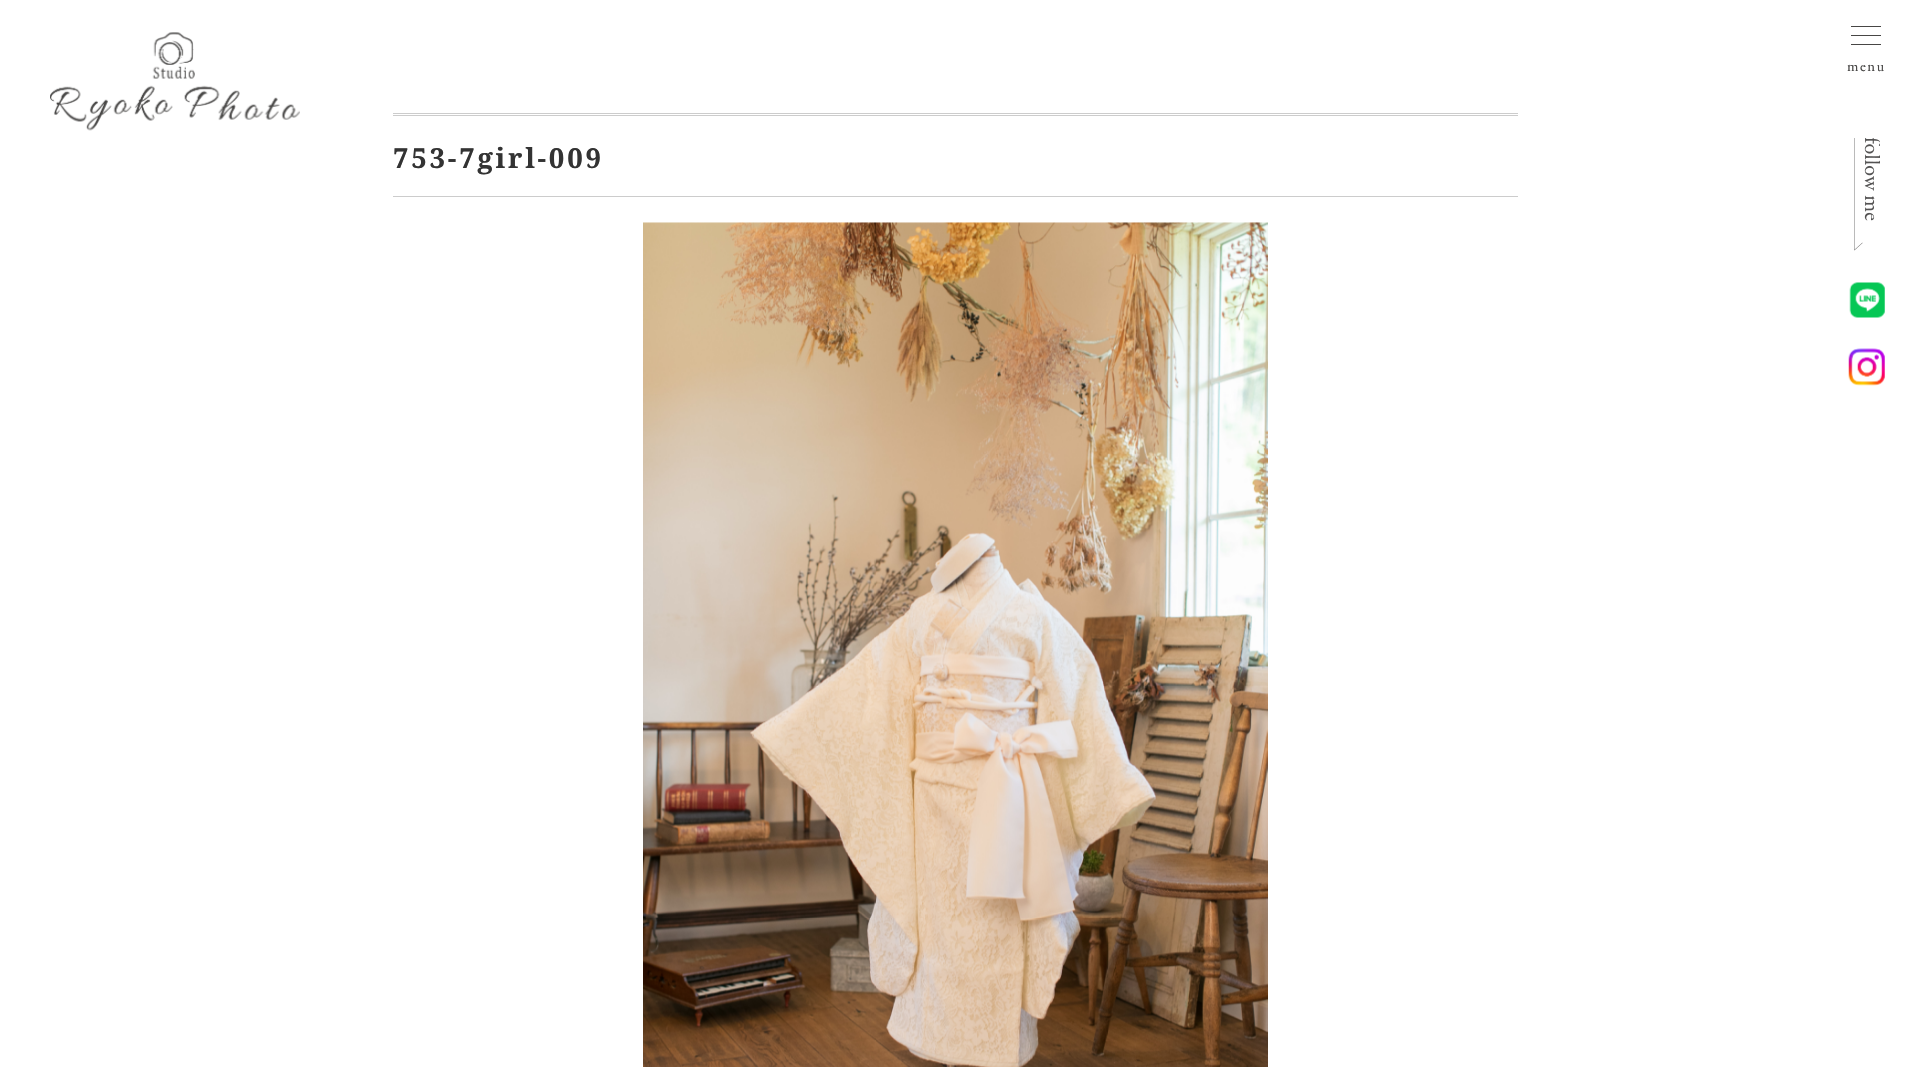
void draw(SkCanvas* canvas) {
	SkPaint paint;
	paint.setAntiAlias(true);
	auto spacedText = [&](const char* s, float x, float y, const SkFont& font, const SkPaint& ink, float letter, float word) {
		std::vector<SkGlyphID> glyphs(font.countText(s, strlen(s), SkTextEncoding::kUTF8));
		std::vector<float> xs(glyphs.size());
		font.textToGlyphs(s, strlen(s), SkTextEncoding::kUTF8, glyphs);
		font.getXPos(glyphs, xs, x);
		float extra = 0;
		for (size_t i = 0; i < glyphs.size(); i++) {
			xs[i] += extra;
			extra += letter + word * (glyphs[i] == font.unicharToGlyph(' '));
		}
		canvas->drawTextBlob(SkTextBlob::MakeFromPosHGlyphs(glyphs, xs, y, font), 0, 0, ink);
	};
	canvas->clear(0xffffffff);
	canvas->drawImageRect(SkImages::DeferredFromEncodedData(SkData::MakeFromFileName("img1.png")), SkRect::MakeXYWH(50, 32, 250, 99), SkSamplingOptions());
	paint.setColor(0xff474645);
	canvas->drawRect(SkRect::MakeXYWH(1851, 26, 30, 1), paint);
	canvas->drawRect(SkRect::MakeXYWH(1851, 35, 30, 1), paint);
	canvas->drawRect(SkRect::MakeXYWH(1851, 44, 30, 1), paint);
	SkFont f1(fontMgr->matchFamilyStyle("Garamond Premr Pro", SkFontStyle::Normal()), 15);
	f1.setSubpixel(true);
	spacedText("menu", 1847, 71, f1, paint, 1.5, 0);
	canvas->drawImageRect(SkImages::DeferredFromEncodedData(SkData::MakeFromFileName("img2.png")), SkRect::MakeXYWH(1854, 138, 26, 113), SkSamplingOptions());
	canvas->drawImageRect(SkImages::DeferredFromEncodedData(SkData::MakeFromFileName("img3.png")), SkRect::MakeXYWH(1849, 282, 36, 36), SkSamplingOptions());
	canvas->drawImageRect(SkImages::DeferredFromEncodedData(SkData::MakeFromFileName("img4.png")), SkRect::MakeXYWH(1848, 348, 37, 38), SkSamplingOptions());
	paint.setColor(0xffcccccc);
	canvas->drawRect(SkRect::MakeXYWH(393, 113, 1125, 1), paint);
	canvas->drawRect(SkRect::MakeXYWH(393, 115, 1125, 1), paint);
	canvas->drawRect(SkRect::MakeXYWH(393, 196, 1125, 1), paint);
	SkFont f2(fontMgr->matchFamilyStyle("Noto Serif", SkFontStyle::Bold()), 27.5);
	f2.setSubpixel(true);
	paint.setColor(0xff333333);
	spacedText("753-7girl-009", 393, 168, f2, paint, 2.75, 0);
	canvas->drawImageRect(SkImages::DeferredFromEncodedData(SkData::MakeFromFileName("img5.png")), SkRect::MakeXYWH(643, 222, 625, 845), SkSamplingOptions());
}
